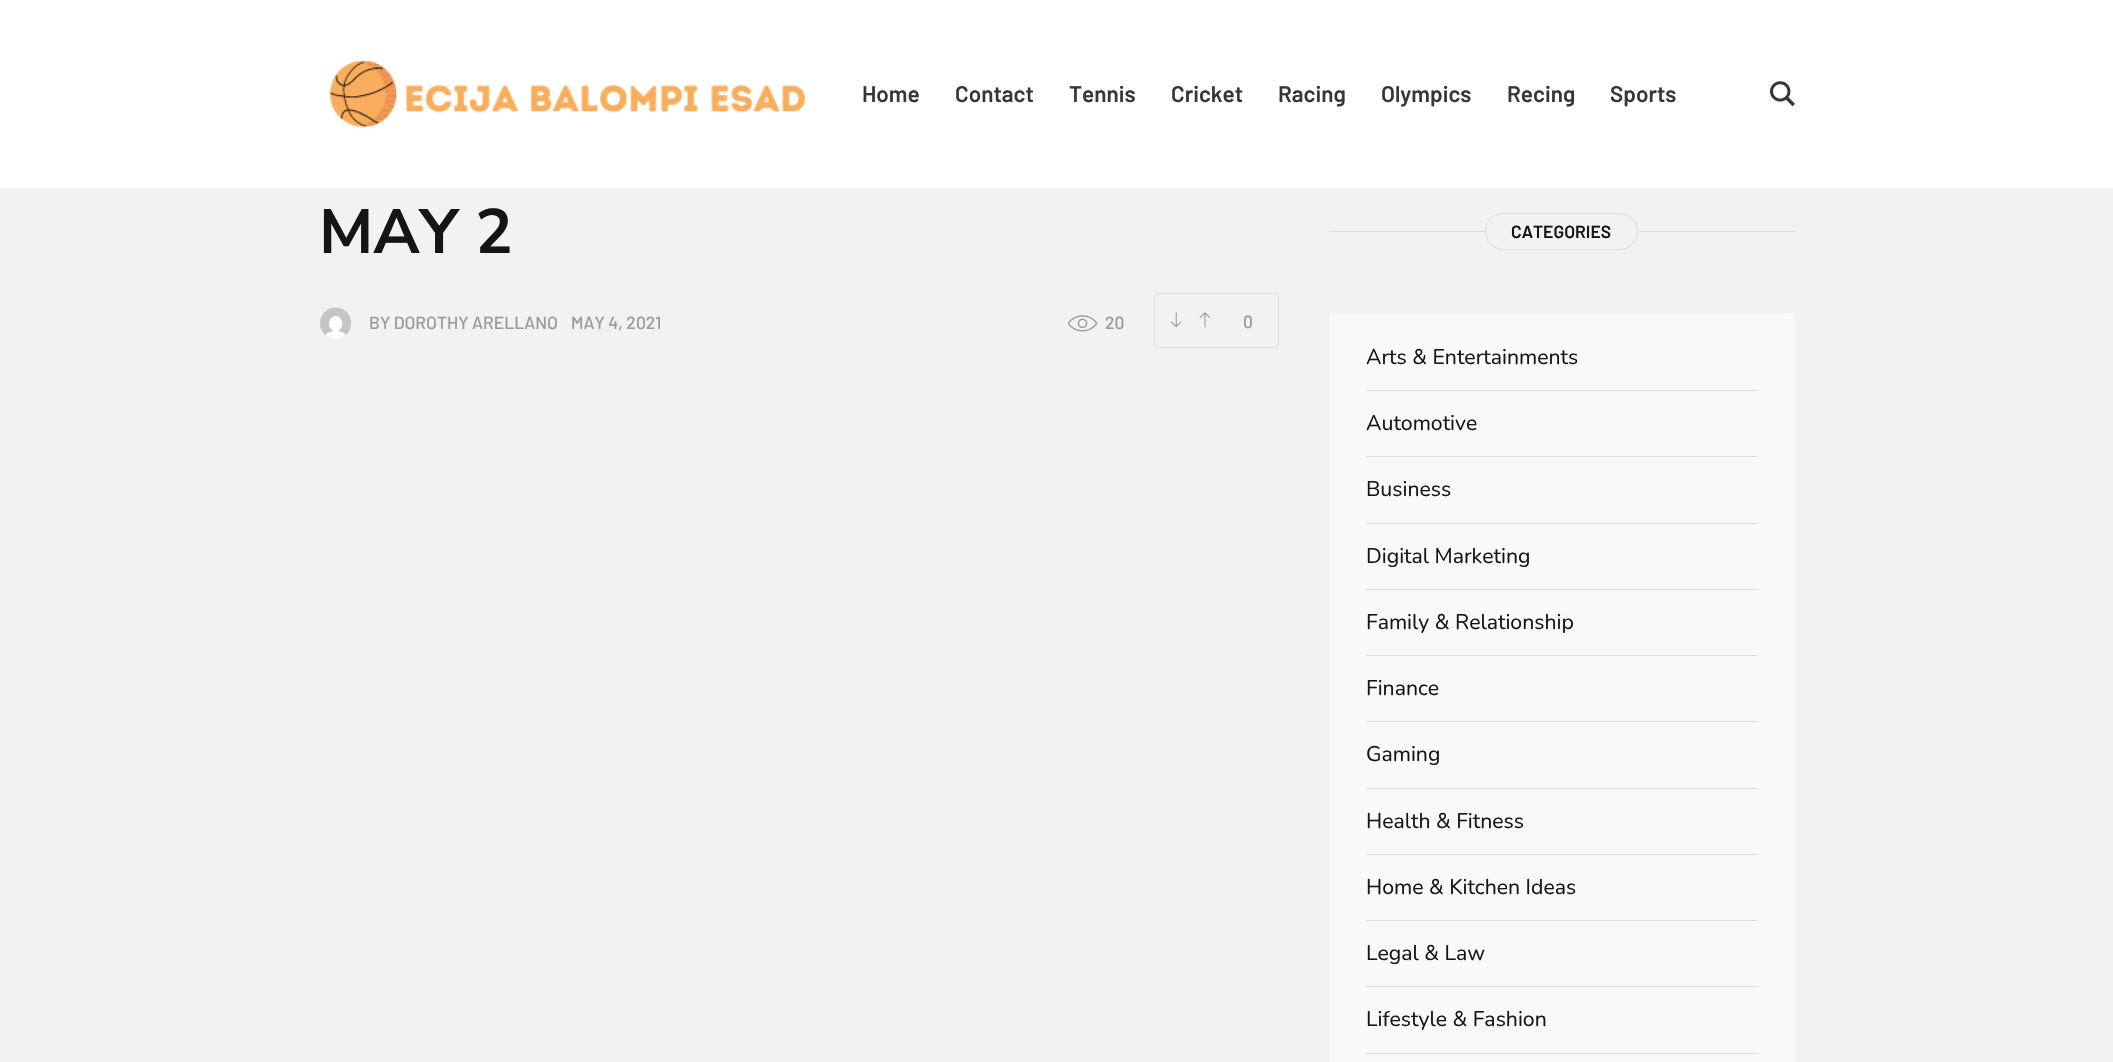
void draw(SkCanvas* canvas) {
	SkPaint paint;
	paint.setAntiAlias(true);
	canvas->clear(0xfff2f2f2);
	paint.setColor(0xffffffff);
	canvas->drawRect(SkRect::MakeXYWH(0, 0, 2113, 188), paint);
	canvas->drawImageRect(SkImages::DeferredFromEncodedData(SkData::MakeFromFileName("img1.png")), SkRect::MakeXYWH(329, 60, 477, 68), SkSamplingOptions());
	SkFont f1(fontMgr->matchFamilyStyle("Barlow", SkFontStyle(600, SkFontStyle::kNormal_Width, SkFontStyle::kUpright_Slant)), 22.5);
	f1.setSubpixel(true);
	paint.setColor(0xff363636);
	canvas->drawString("Home", 862, 102, f1, paint);
	canvas->drawString("Contact", 955, 102, f1, paint);
	canvas->drawString("Tennis", 1069, 102, f1, paint);
	canvas->drawString("Cricket", 1171, 102, f1, paint);
	canvas->drawString("Racing", 1278, 102, f1, paint);
	canvas->drawString("Olympics", 1381, 102, f1, paint);
	canvas->drawString("Recing", 1507, 102, f1, paint);
	canvas->drawString("Sports", 1610, 102, f1, paint);
	canvas->drawImageRect(SkImages::DeferredFromEncodedData(SkData::MakeFromFileName("img2.png")), SkRect::MakeXYWH(1770, 81, 25, 26), SkSamplingOptions());
	SkFont f2(fontMgr->matchFamilyStyle("Nunito Sans", SkFontStyle(200, SkFontStyle::kNormal_Width, SkFontStyle::kUpright_Slant)), 62.5);
	f2.setSubpixel(true);
	paint.setColor(0xff151515);
	canvas->drawString("MAY 2", 319, 253, f2, paint);
	canvas->drawImageRect(SkImages::DeferredFromEncodedData(SkData::MakeFromFileName("img3.png")), SkRect::MakeXYWH(320, 307, 31, 32), SkSamplingOptions());
	SkFont f3(fontMgr->matchFamilyStyle("Barlow", SkFontStyle(500, SkFontStyle::kNormal_Width, SkFontStyle::kUpright_Slant)), 17.5);
	f3.setSubpixel(true);
	paint.setColor(0xff959b9f);
	canvas->drawString("BY DOROTHY ARELLANO", 369, 329, f3, paint);
	canvas->drawString("MAY 4, 2021", 571, 329, f3, paint);
	canvas->drawImageRect(SkImages::DeferredFromEncodedData(SkData::MakeFromFileName("img4.png")), SkRect::MakeXYWH(1068, 315, 30, 17), SkSamplingOptions());
	canvas->drawString("20", 1105, 329, f3, paint);
	paint.setStroke(true);
	paint.setStrokeWidth(1);
	paint.setColor(0xffdcdcdc);
	canvas->drawRoundRect(SkRect::MakeXYWH(1154.5, 293.5, 124, 54), 4.5, 4.5, paint);
	canvas->drawImageRect(SkImages::DeferredFromEncodedData(SkData::MakeFromFileName("img5.png")), SkRect::MakeXYWH(1171, 312, 11, 16), SkSamplingOptions());
	canvas->drawImageRect(SkImages::DeferredFromEncodedData(SkData::MakeFromFileName("img6.png")), SkRect::MakeXYWH(1199, 312, 12, 16), SkSamplingOptions());
	paint.setStroke(false);
	paint.setColor(0xff959b9f);
	canvas->drawString("0", 1243, 328, f3, paint);
	paint.setColor(0xffdcdcdc);
	canvas->drawRect(SkRect::MakeXYWH(1329, 231, 466, 1), paint);
	paint.setColor(0xfff2f2f2);
	canvas->drawRoundRect(SkRect::MakeXYWH(1485.5, 213.5, 152, 36), 18, 18, paint);
	paint.setStroke(true);
	paint.setColor(0xffdcdcdc);
	canvas->drawRoundRect(SkRect::MakeXYWH(1485.5, 213.5, 152, 36), 18, 18, paint);
	SkFont f4(fontMgr->matchFamilyStyle("Barlow", SkFontStyle(600, SkFontStyle::kNormal_Width, SkFontStyle::kUpright_Slant)), 17.5);
	f4.setSubpixel(true);
	paint.setStroke(false);
	paint.setColor(0xff151515);
	canvas->drawString("CATEGORIES", 1511, 238, f4, paint);
	paint.setColor(0xfff9f9f9);
	canvas->drawRoundRect(SkRect::MakeXYWH(1329, 313, 466, 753), 4, 4, paint);
	paint.setColor(0xffdcdcdc);
	canvas->drawRect(SkRect::MakeXYWH(1366, 390, 392, 1), paint);
	SkFont f5(fontMgr->matchFamilyStyle("Nunito", SkFontStyle::Normal()), 21.25);
	f5.setSubpixel(true);
	paint.setColor(0xff151515);
	canvas->drawString("Arts & Entertainments", 1366, 364, f5, paint);
	paint.setColor(0xffdcdcdc);
	canvas->drawRect(SkRect::MakeXYWH(1366, 456, 392, 1), paint);
	paint.setColor(0xff151515);
	canvas->drawString("Automotive", 1366, 430, f5, paint);
	paint.setColor(0xffdcdcdc);
	canvas->drawRect(SkRect::MakeXYWH(1366, 523, 392, 1), paint);
	paint.setColor(0xff151515);
	canvas->drawString("Business", 1366, 496, f5, paint);
	paint.setColor(0xffdcdcdc);
	canvas->drawRect(SkRect::MakeXYWH(1366, 589, 392, 1), paint);
	paint.setColor(0xff151515);
	canvas->drawString("Digital Marketing", 1366, 563, f5, paint);
	paint.setColor(0xffdcdcdc);
	canvas->drawRect(SkRect::MakeXYWH(1366, 655, 392, 1), paint);
	paint.setColor(0xff151515);
	canvas->drawString("Family & Relationship", 1366, 629, f5, paint);
	paint.setColor(0xffdcdcdc);
	canvas->drawRect(SkRect::MakeXYWH(1366, 721, 392, 1), paint);
	paint.setColor(0xff151515);
	canvas->drawString("Finance", 1366, 695, f5, paint);
	paint.setColor(0xffdcdcdc);
	canvas->drawRect(SkRect::MakeXYWH(1366, 788, 392, 1), paint);
	paint.setColor(0xff151515);
	canvas->drawString("Gaming", 1366, 761, f5, paint);
	paint.setColor(0xffdcdcdc);
	canvas->drawRect(SkRect::MakeXYWH(1366, 854, 392, 1), paint);
	paint.setColor(0xff151515);
	canvas->drawString("Health & Fitness", 1366, 828, f5, paint);
	paint.setColor(0xffdcdcdc);
	canvas->drawRect(SkRect::MakeXYWH(1366, 920, 392, 1), paint);
	paint.setColor(0xff151515);
	canvas->drawString("Home & Kitchen Ideas", 1366, 894, f5, paint);
	paint.setColor(0xffdcdcdc);
	canvas->drawRect(SkRect::MakeXYWH(1366, 986, 392, 1), paint);
	paint.setColor(0xff151515);
	canvas->drawString("Legal & Law", 1366, 960, f5, paint);
	paint.setColor(0xffdcdcdc);
	canvas->drawRect(SkRect::MakeXYWH(1366, 1053, 392, 1), paint);
	paint.setColor(0xff151515);
	canvas->drawString("Lifestyle & Fashion", 1366, 1026, f5, paint);
}
